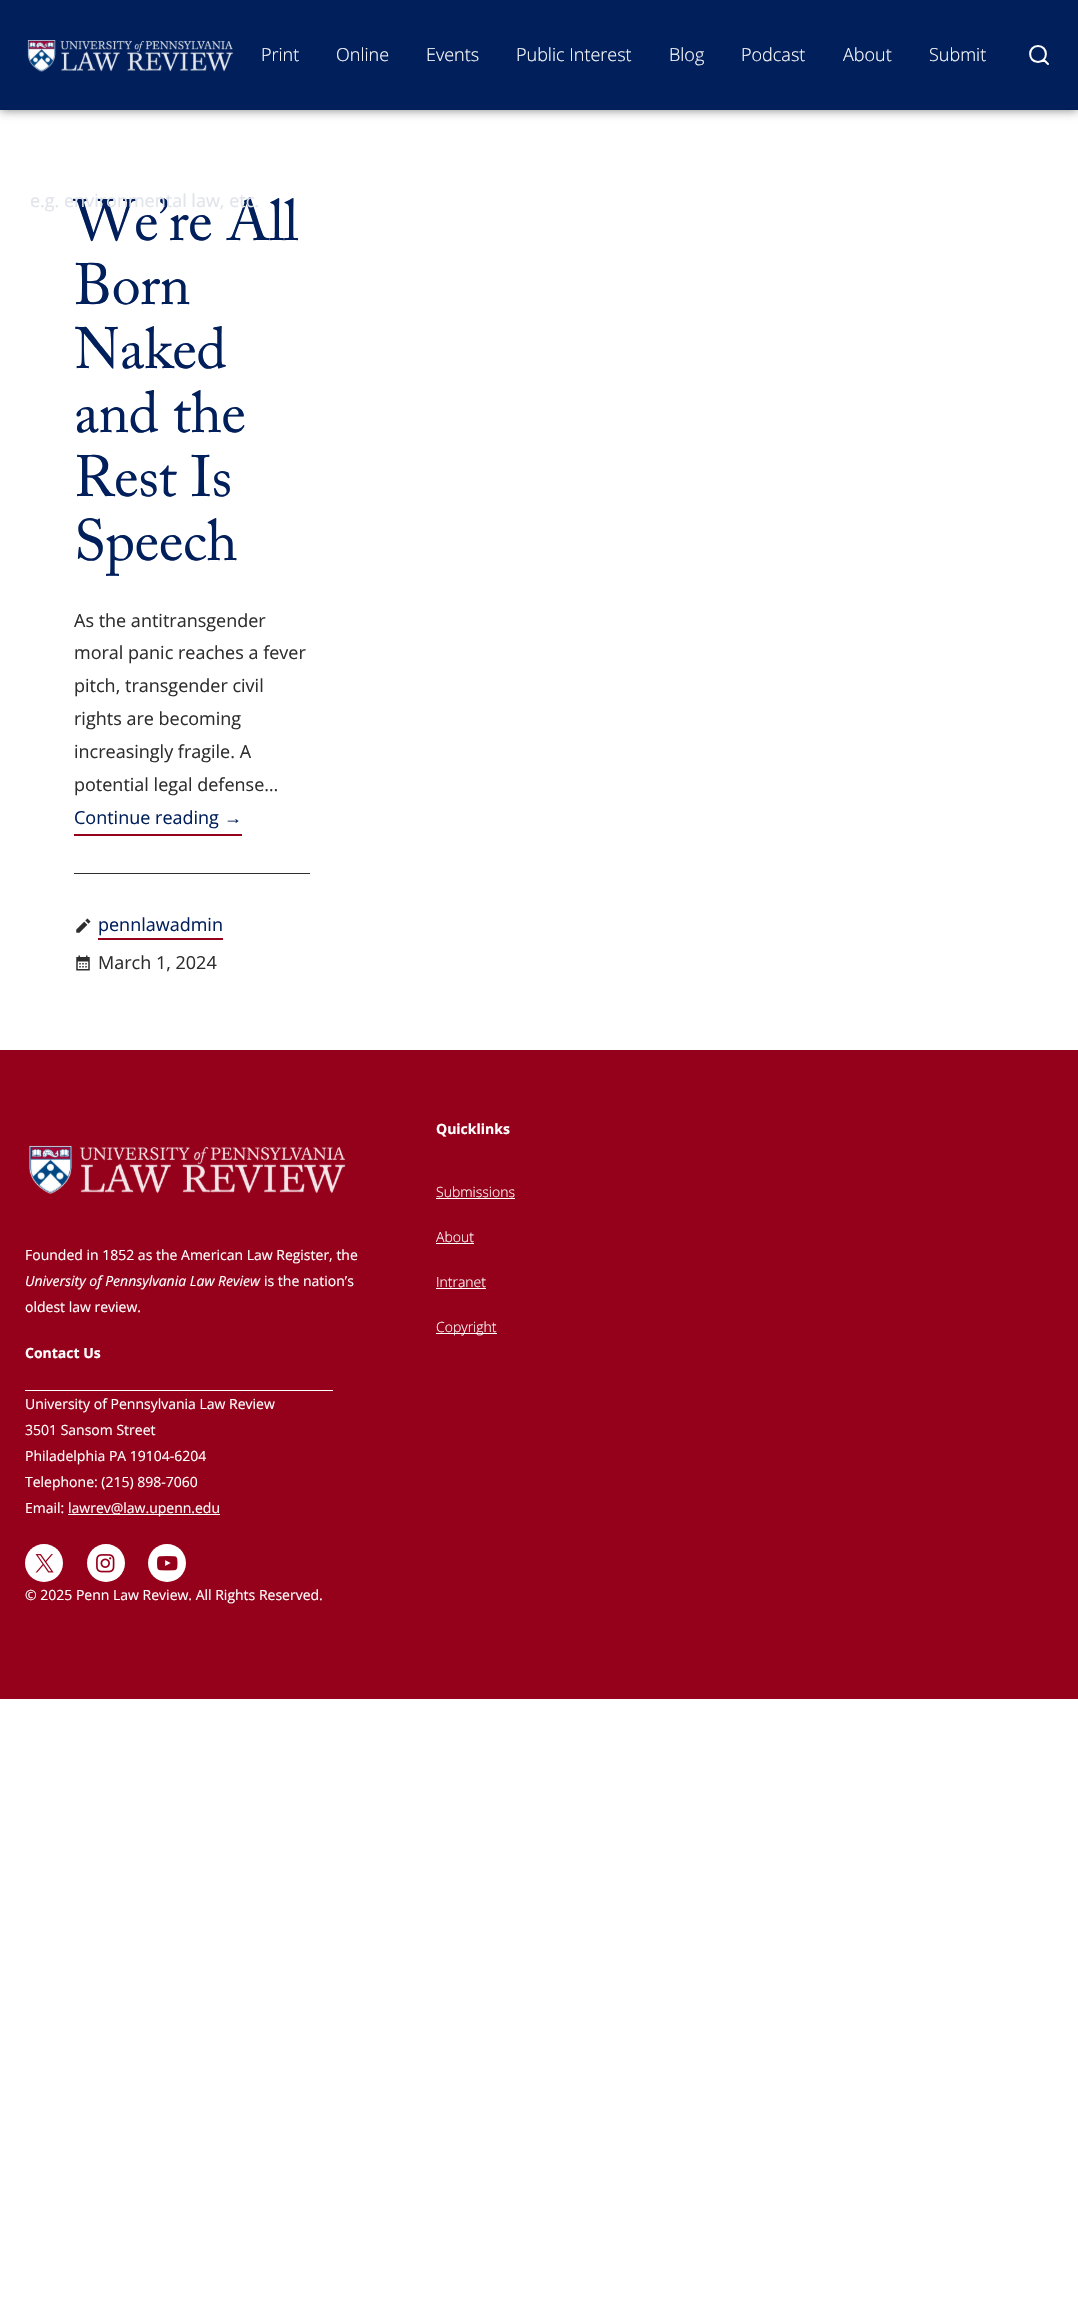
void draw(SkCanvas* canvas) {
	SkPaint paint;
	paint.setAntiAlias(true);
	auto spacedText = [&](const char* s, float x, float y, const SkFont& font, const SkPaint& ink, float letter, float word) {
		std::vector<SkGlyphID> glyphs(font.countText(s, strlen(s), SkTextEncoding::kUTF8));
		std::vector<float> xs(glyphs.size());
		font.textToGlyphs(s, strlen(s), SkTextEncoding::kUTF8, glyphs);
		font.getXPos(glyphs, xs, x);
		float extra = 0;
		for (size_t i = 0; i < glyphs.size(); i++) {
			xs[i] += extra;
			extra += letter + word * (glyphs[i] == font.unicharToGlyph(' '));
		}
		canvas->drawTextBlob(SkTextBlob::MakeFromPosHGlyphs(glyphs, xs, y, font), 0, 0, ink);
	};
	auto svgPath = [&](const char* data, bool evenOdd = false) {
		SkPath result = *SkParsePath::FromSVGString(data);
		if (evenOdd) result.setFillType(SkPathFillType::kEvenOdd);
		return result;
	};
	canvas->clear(0xffffffff);
	paint.setColor(0x80000000);
	paint.setMaskFilter(SkMaskFilter::MakeBlur(kNormal_SkBlurStyle, 5));
	canvas->drawRect(SkRect::MakeXYWH(0, 0, 1078, 110), paint);
	paint.setMaskFilter(nullptr);
	paint.setColor(0xff011f5b);
	canvas->drawRect(SkRect::MakeXYWH(0, 0, 1078, 110), paint);
	canvas->drawImageRect(SkImages::DeferredFromEncodedData(SkData::MakeFromFileName("img1.png")), SkRect::MakeXYWH(27, 40, 207, 32), SkSamplingOptions());
	SkFont f1(fontMgr->matchFamilyStyle("Open Sans", SkFontStyle(300, SkFontStyle::kNormal_Width, SkFontStyle::kUpright_Slant)), 18);
	f1.setSubpixel(true);
	paint.setColor(0xffffffff);
	canvas->drawString("Print", 261, 61, f1, paint);
	canvas->drawString("Online", 336, 61, f1, paint);
	canvas->drawString("Events", 426, 61, f1, paint);
	canvas->drawString("Public Interest", 516, 61, f1, paint);
	canvas->drawString("Blog", 669, 61, f1, paint);
	canvas->drawString("Podcast", 741, 61, f1, paint);
	canvas->drawString("About", 843, 61, f1, paint);
	canvas->drawString("Submit", 929, 61, f1, paint);
	paint.setStroke(true);
	paint.setStrokeWidth(2);
	paint.setStrokeCap(SkPaint::kRound_Cap);
	paint.setStrokeJoin(SkPaint::kRound_Join);
	canvas->drawPath(svgPath("M1038 62C1048.5 62 1048.5 46 1038 46C1027.5 46 1027.5 62 1038 62ZM1048 64L1043.5 59.5"), paint);
	SkFont f2(fontMgr->matchFamilyStyle("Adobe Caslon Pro", SkFontStyle::Normal()), 58);
	f2.setSubpixel(true);
	paint.setStroke(false);
	paint.setColor(0xff011f5b);
	spacedText("We’re All", 74, 240, f2, paint, -0.5, 0);
	SkFont f3(fontMgr->matchFamilyStyle("Open Sans", SkFontStyle::Normal()), 18);
	f3.setSubpixel(true);
	paint.setColor(0xffe1e4eb);
	canvas->drawString("e.g. environmental law, etc.", 30, 207, f3, paint);
	paint.setColor(0xff011f5b);
	spacedText("Born", 74, 304, f2, paint, -0.5, 0);
	spacedText("Naked", 74, 368, f2, paint, -0.5, 0);
	spacedText("and the", 74, 432, f2, paint, -0.5, 0);
	spacedText("Rest Is", 74, 496, f2, paint, -0.5, 0);
	spacedText("Speech", 74, 560, f2, paint, -0.5, 0);
	paint.setColor(0xff2e2e2e);
	canvas->drawString("As the antitransgender", 74, 627, f3, paint);
	canvas->drawString("moral panic reaches a fever", 74, 659, f3, paint);
	canvas->drawString("pitch, transgender civil", 74, 692, f3, paint);
	canvas->drawString("rights are becoming", 74, 725, f3, paint);
	canvas->drawString("increasingly fragile. A", 74, 758, f3, paint);
	canvas->drawString("potential legal defense…", 74, 791, f3, paint);
	paint.setColor(0xff95001a);
	canvas->drawRect(SkRect::MakeXYWH(74, 834, 168, 2), paint);
	paint.setColor(0xff011f5b);
	canvas->drawString("Continue reading", 74, 824, f3, paint);
	SkFont f4(fontMgr->matchFamilyStyle("Liberation Sans", SkFontStyle::Normal()), 18);
	f4.setSubpixel(true);
	canvas->drawString("→", 224, 824, f4, paint);
	paint.setColor(0xff2e2e2e);
	canvas->drawRect(SkRect::MakeXYWH(74, 873, 236, 1), paint);
	canvas->drawImageRect(SkImages::DeferredFromEncodedData(SkData::MakeFromFileName("img2.png")), SkRect::MakeXYWH(76, 918, 15, 15), SkSamplingOptions());
	paint.setColor(0xff95001a);
	canvas->drawRect(SkRect::MakeXYWH(98, 938, 125, 2), paint);
	paint.setColor(0xff011f5b);
	canvas->drawString("pennlawadmin", 98, 931, f3, paint);
	canvas->drawImageRect(SkImages::DeferredFromEncodedData(SkData::MakeFromFileName("img3.png")), SkRect::MakeXYWH(76, 955, 14, 16), SkSamplingOptions());
	paint.setColor(0xff2e2e2e);
	canvas->drawString("March 1, 2024", 98, 969, f3, paint);
	paint.setColor(0xff95001a);
	canvas->drawRect(SkRect::MakeXYWH(0, 1050, 1078, 649), paint);
	canvas->drawImageRect(SkImages::DeferredFromEncodedData(SkData::MakeFromFileName("img4.png")), SkRect::MakeXYWH(29, 1145, 317, 49), SkSamplingOptions());
	SkFont f5(fontMgr->matchFamilyStyle("Open Sans", SkFontStyle::Normal()), 14);
	f5.setSubpixel(true);
	paint.setColor(0xffffffff);
	canvas->drawString("Founded in 1852 as the American Law Register, the", 25, 1260, f5, paint);
	SkFont f6(fontMgr->matchFamilyStyle("Open Sans", SkFontStyle::Italic()), 14);
	f6.setSubpixel(true);
	canvas->drawString("University of Pennsylvania Law Review", 25, 1286, f6, paint);
	canvas->drawString("is the nation’s", 264, 1286, f5, paint);
	canvas->drawString("oldest law review.", 25, 1312, f5, paint);
	SkFont f7(fontMgr->matchFamilyStyle("Open Sans", SkFontStyle::Bold()), 14);
	f7.setSubpixel(true);
	canvas->drawString("Quicklinks", 436, 1134, f7, paint);
	SkFont f8(fontMgr->matchFamilyStyle("Open Sans", SkFontStyle(300, SkFontStyle::kNormal_Width, SkFontStyle::kUpright_Slant)), 14);
	f8.setSubpixel(true);
	canvas->drawString("Submissions", 436, 1197, f8, paint);
	canvas->drawRect(SkRect::MakeXYWH(436, 1198, 79, 1), paint);
	canvas->drawString("About", 436, 1242, f8, paint);
	canvas->drawRect(SkRect::MakeXYWH(436, 1243, 38, 1), paint);
	canvas->drawString("Intranet", 436, 1287, f8, paint);
	canvas->drawRect(SkRect::MakeXYWH(436, 1288, 50, 1), paint);
	canvas->drawRect(SkRect::MakeXYWH(436, 1333, 61, 1), paint);
	canvas->drawString("Copyright", 436, 1332, f8, paint);
	canvas->drawString("Contact Us", 25, 1358, f7, paint);
	canvas->drawRect(SkRect::MakeXYWH(25, 1390, 308, 1), paint);
	canvas->drawString("University of Pennsylvania Law Review", 25, 1409, f5, paint);
	canvas->drawString("3501 Sansom Street", 25, 1435, f5, paint);
	canvas->drawString("Philadelphia PA 19104-6204", 25, 1461, f5, paint);
	canvas->drawString("Telephone: (215) 898-7060", 25, 1487, f5, paint);
	canvas->drawString("Email:", 25, 1513, f5, paint);
	canvas->drawRect(SkRect::MakeXYWH(68, 1514, 152, 1), paint);
	canvas->drawString("lawrev@law.upenn.edu", 68, 1513, f5, paint);
	canvas->drawCircle(44, 1563, 19, paint);
	canvas->drawImageRect(SkImages::DeferredFromEncodedData(SkData::MakeFromFileName("img5.png")), SkRect::MakeXYWH(35, 1554, 19, 19), SkSamplingOptions());
	canvas->drawCircle(106, 1563, 19, paint);
	canvas->drawImageRect(SkImages::DeferredFromEncodedData(SkData::MakeFromFileName("img6.png")), SkRect::MakeXYWH(96, 1554, 19, 19), SkSamplingOptions());
	canvas->drawCircle(167, 1563, 19, paint);
	canvas->drawImageRect(SkImages::DeferredFromEncodedData(SkData::MakeFromFileName("img7.png")), SkRect::MakeXYWH(157, 1556, 21, 15), SkSamplingOptions());
	canvas->drawString("© 2025 Penn Law Review. All Rights Reserved.", 25, 1600, f5, paint);
}
